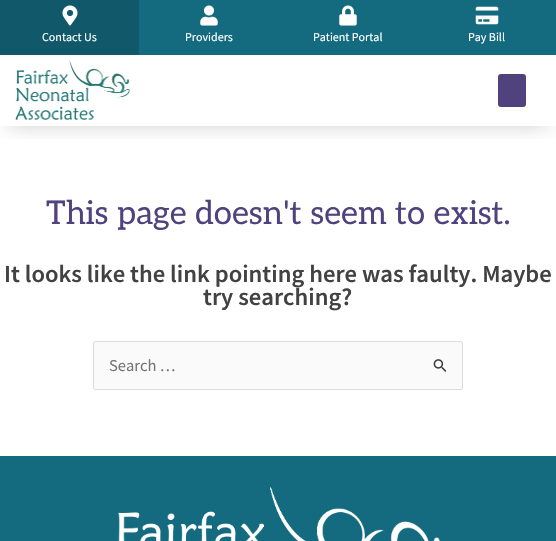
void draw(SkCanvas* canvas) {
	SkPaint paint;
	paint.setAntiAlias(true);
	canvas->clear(0xffffffff);
	canvas->save();
	canvas->clipRect(SkRect::MakeXYWH(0, 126, 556, 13));
	paint.setColor(0x4a000000);
	paint.setMaskFilter(SkMaskFilter::MakeBlur(kNormal_SkBlurStyle, 12));
	canvas->drawRect(SkRect::MakeXYWH(9, 68, 538, 53), paint);
	paint.setMaskFilter(nullptr);
	canvas->restore();
	canvas->drawImageRect(SkImages::DeferredFromEncodedData(SkData::MakeFromFileName("img1.png")), SkRect::MakeXYWH(15, 61, 115, 59), SkSamplingOptions());
	paint.setColor(0xff50437d);
	canvas->drawRoundRect(SkRect::MakeXYWH(498, 74, 28, 33), 3, 3, paint);
	paint.setColor(0xff11596a);
	canvas->drawRect(SkRect::MakeXYWH(0, 0, 139, 55), paint);
	canvas->drawImageRect(SkImages::DeferredFromEncodedData(SkData::MakeFromFileName("img2.png")), SkRect::MakeXYWH(62, 5, 16, 21), SkSamplingOptions());
	SkFont f1(fontMgr->matchFamilyStyle("Source Sans Pro", SkFontStyle::Normal()), 12);
	f1.setSubpixel(true);
	paint.setColor(0xffffffff);
	canvas->drawString("Contact Us", 42, 41, f1, paint);
	paint.setColor(0xff146b7f);
	canvas->drawRect(SkRect::MakeXYWH(139, 0, 417, 55), paint);
	canvas->drawImageRect(SkImages::DeferredFromEncodedData(SkData::MakeFromFileName("img3.png")), SkRect::MakeXYWH(200, 5, 18, 21), SkSamplingOptions());
	paint.setColor(0xffffffff);
	canvas->drawString("Providers", 185, 41, f1, paint);
	canvas->drawImageRect(SkImages::DeferredFromEncodedData(SkData::MakeFromFileName("img4.png")), SkRect::MakeXYWH(339, 5, 18, 21), SkSamplingOptions());
	canvas->drawString("Patient Portal", 313, 41, f1, paint);
	canvas->drawImageRect(SkImages::DeferredFromEncodedData(SkData::MakeFromFileName("img5.png")), SkRect::MakeXYWH(475, 6, 24, 19), SkSamplingOptions());
	canvas->drawString("Pay Bill", 468, 41, f1, paint);
	SkFont f2(fontMgr->matchFamilyStyle("Aleo", SkFontStyle::Normal()), 32.8);
	f2.setSubpixel(true);
	paint.setColor(0xff50437d);
	canvas->drawString("This page doesn't seem to exist.", 46, 224, f2, paint);
	SkFont f3(fontMgr->matchFamilyStyle("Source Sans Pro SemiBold", SkFontStyle(600, SkFontStyle::kNormal_Width, SkFontStyle::kUpright_Slant)), 24.6);
	f3.setSubpixel(true);
	paint.setColor(0xff424242);
	canvas->drawString("It looks like the link pointing here was faulty. Maybe", 4, 282, f3, paint);
	canvas->drawString("try searching?", 203, 305, f3, paint);
	paint.setColor(0xfffafafa);
	canvas->drawRoundRect(SkRect::MakeXYWH(93.5, 341.5, 369, 48), 1.5, 1.5, paint);
	paint.setStroke(true);
	paint.setStrokeWidth(1);
	paint.setColor(0xffdddddd);
	canvas->drawRoundRect(SkRect::MakeXYWH(93.5, 341.5, 369, 48), 1.5, 1.5, paint);
	SkFont f4(fontMgr->matchFamilyStyle("Source Sans Pro", SkFontStyle::Normal()), 16.5);
	f4.setSubpixel(true);
	paint.setStroke(false);
	paint.setColor(0xff757575);
	canvas->drawString("Search …", 109, 371, f4, paint);
	canvas->drawImageRect(SkImages::DeferredFromEncodedData(SkData::MakeFromFileName("img6.png")), SkRect::MakeXYWH(433, 359, 13, 13), SkSamplingOptions());
	paint.setColor(0xff146b7f);
	canvas->drawRect(SkRect::MakeXYWH(0, 456, 556, 85), paint);
	canvas->drawImageRect(SkImages::DeferredFromEncodedData(SkData::MakeFromFileName("img7.png")), SkRect::MakeXYWH(118, 487, 322, 54), SkSamplingOptions());
}
